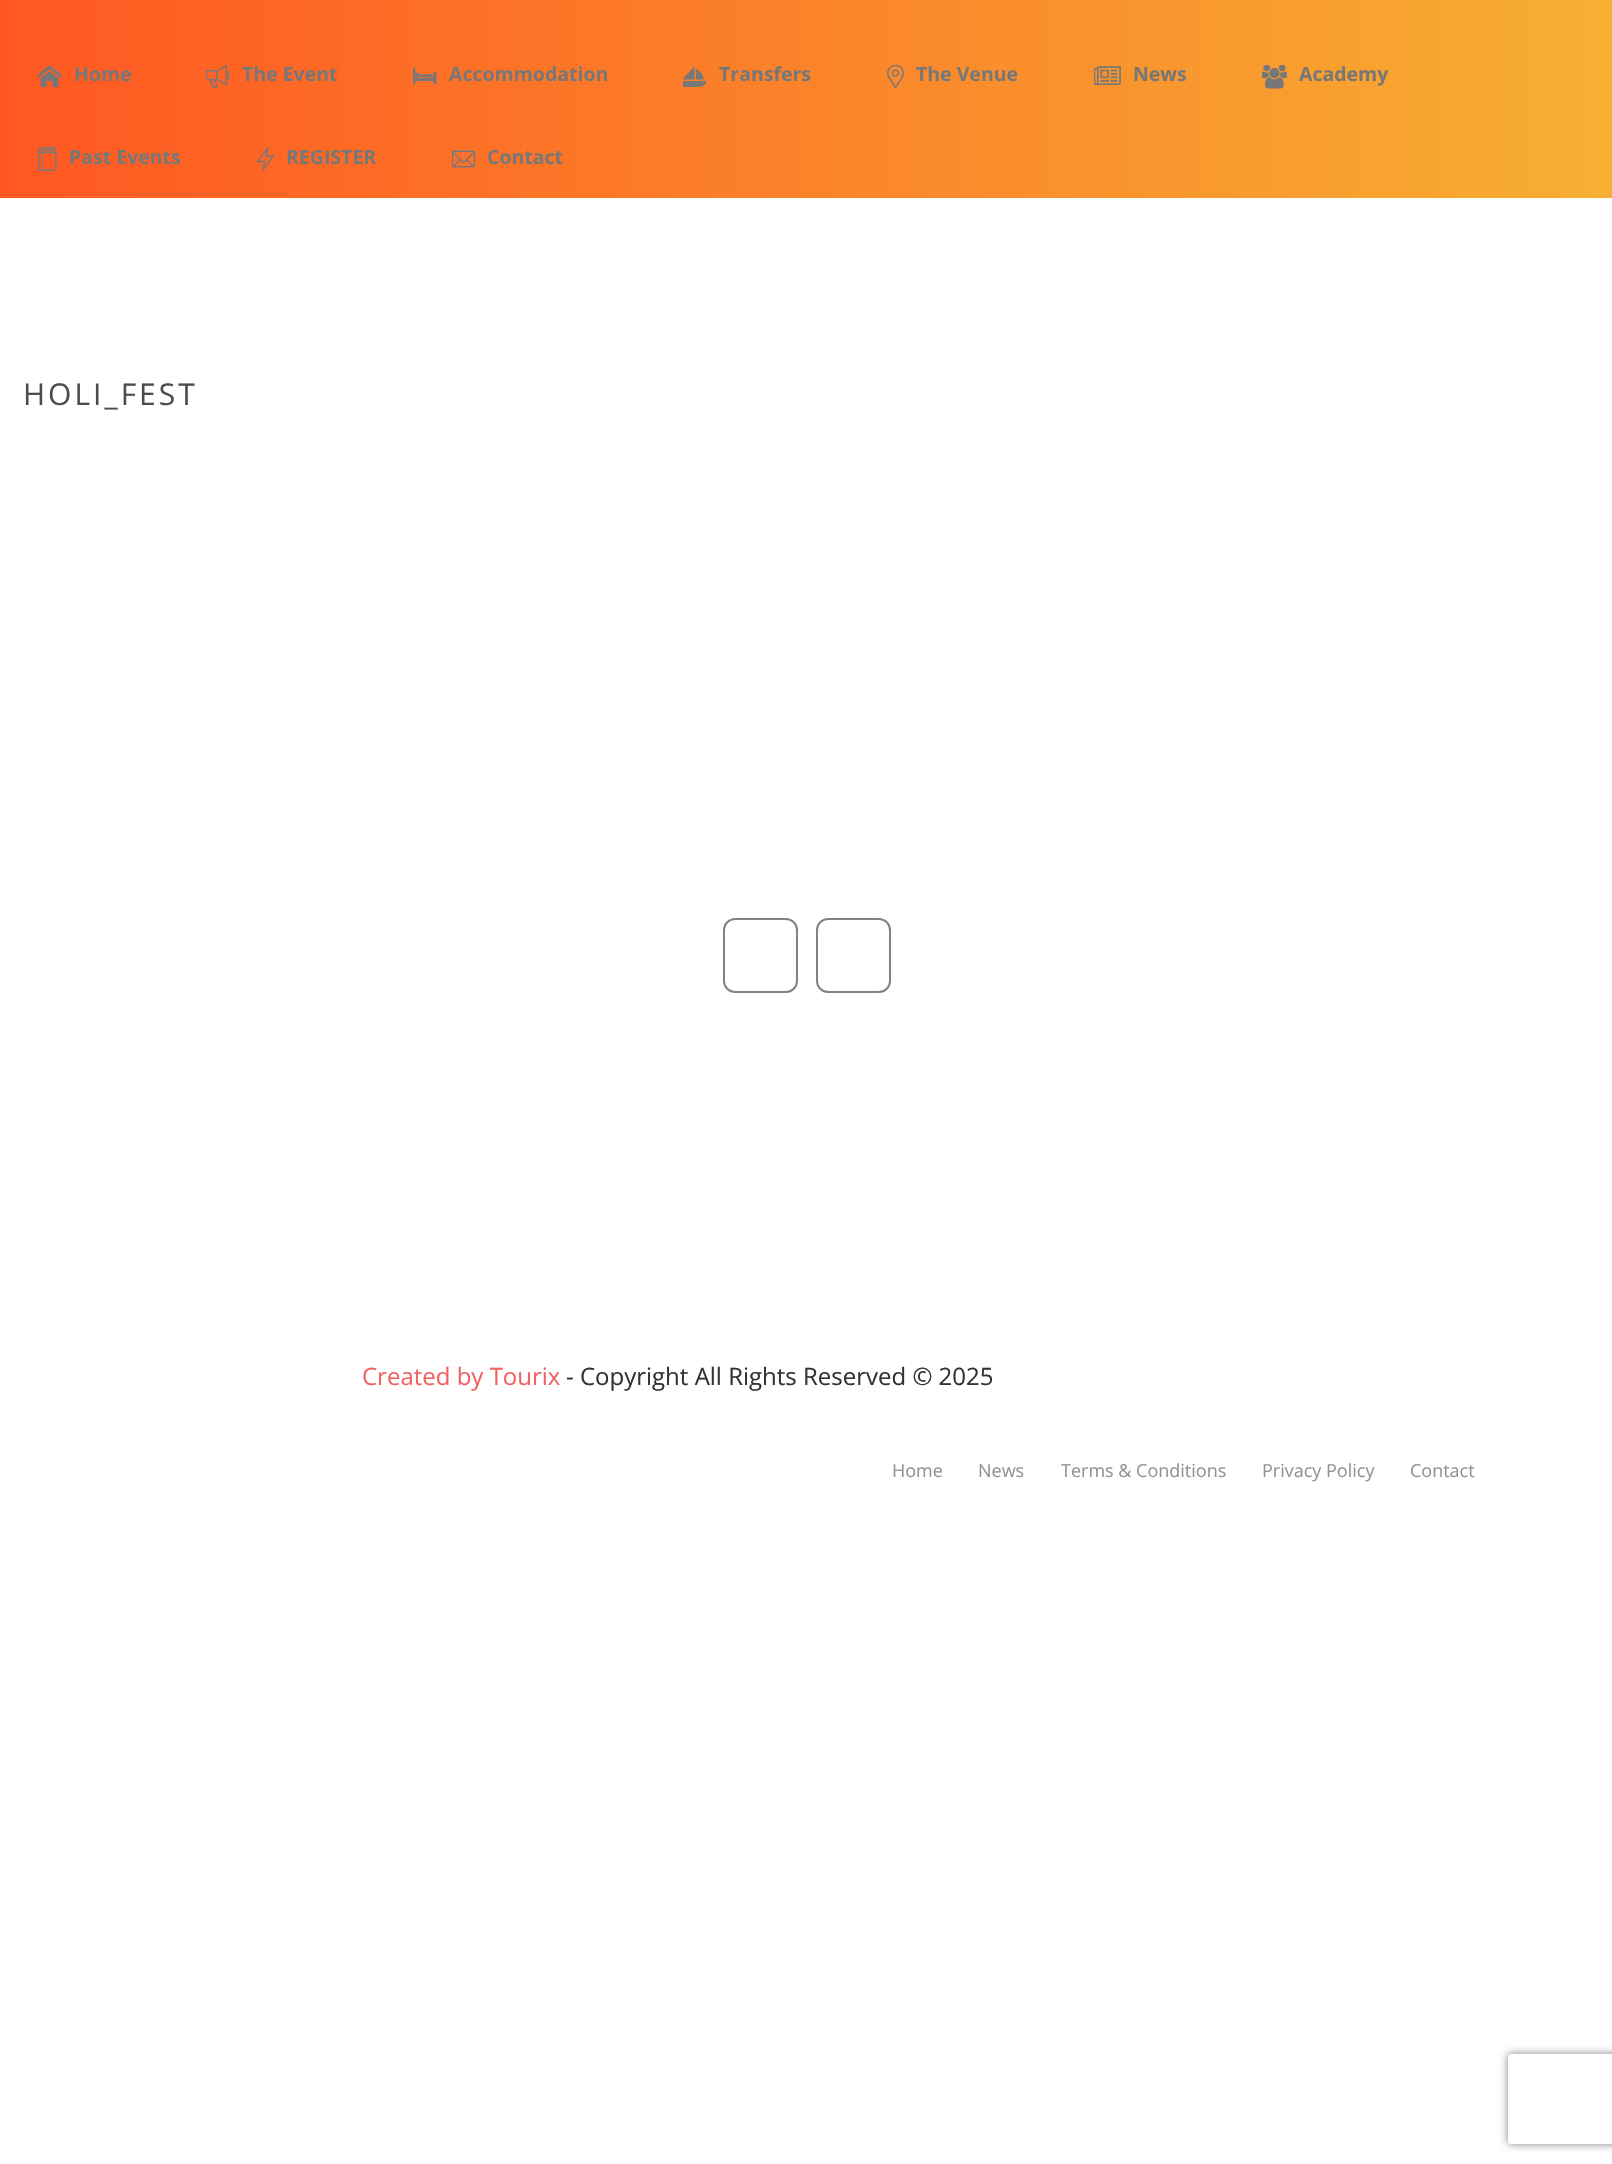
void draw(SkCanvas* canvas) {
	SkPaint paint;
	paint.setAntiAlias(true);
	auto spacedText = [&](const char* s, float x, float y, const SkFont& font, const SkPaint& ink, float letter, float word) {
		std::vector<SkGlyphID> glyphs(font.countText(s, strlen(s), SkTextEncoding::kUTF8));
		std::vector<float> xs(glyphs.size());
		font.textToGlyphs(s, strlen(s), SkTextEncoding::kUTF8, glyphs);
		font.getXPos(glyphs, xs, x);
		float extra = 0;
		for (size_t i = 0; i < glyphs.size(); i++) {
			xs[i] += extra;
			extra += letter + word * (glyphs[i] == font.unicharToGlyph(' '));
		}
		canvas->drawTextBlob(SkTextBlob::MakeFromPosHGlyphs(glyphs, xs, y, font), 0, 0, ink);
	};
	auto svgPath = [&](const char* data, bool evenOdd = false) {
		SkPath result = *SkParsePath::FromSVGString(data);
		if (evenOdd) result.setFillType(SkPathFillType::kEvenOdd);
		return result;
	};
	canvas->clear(0xffffffff);
	{
		const SkColor colors[] = {0xffff5722, 0xfff7af32};
		const float stops[] = {0, 1};
		const SkPoint ends[] = {{0, 99}, {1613, 99}};
		paint.setShader(SkGradientShader::MakeLinear(ends, colors, stops, 2, SkTileMode::kClamp));
		paint.setAlpha(255);
	}
	canvas->drawRect(SkRect::MakeXYWH(0, 0, 1612, 198), paint);
	canvas->drawImageRect(SkImages::DeferredFromEncodedData(SkData::MakeFromFileName("img1.png")), SkRect::MakeXYWH(38, 65, 24, 22), SkSamplingOptions());
	SkFont f1(fontMgr->matchFamilyStyle("Open Sans", SkFontStyle::Bold()), 19.5);
	f1.setSubpixel(true);
	paint.setShader(nullptr);
	paint.setColor(0xff777777);
	canvas->drawString("Home", 74, 81, f1, paint);
	canvas->drawImageRect(SkImages::DeferredFromEncodedData(SkData::MakeFromFileName("img2.png")), SkRect::MakeXYWH(206, 65, 24, 24), SkSamplingOptions());
	canvas->drawString("The Event", 242, 81, f1, paint);
	canvas->drawImageRect(SkImages::DeferredFromEncodedData(SkData::MakeFromFileName("img3.png")), SkRect::MakeXYWH(413, 67, 24, 17), SkSamplingOptions());
	canvas->drawString("Accommodation", 449, 81, f1, paint);
	canvas->drawImageRect(SkImages::DeferredFromEncodedData(SkData::MakeFromFileName("img4.png")), SkRect::MakeXYWH(683, 66, 24, 21), SkSamplingOptions());
	canvas->drawString("Transfers", 719, 81, f1, paint);
	canvas->drawImageRect(SkImages::DeferredFromEncodedData(SkData::MakeFromFileName("img5.png")), SkRect::MakeXYWH(887, 65, 17, 24), SkSamplingOptions());
	canvas->drawString("The Venue", 916, 81, f1, paint);
	canvas->drawImageRect(SkImages::DeferredFromEncodedData(SkData::MakeFromFileName("img6.png")), SkRect::MakeXYWH(1094, 66, 27, 20), SkSamplingOptions());
	canvas->drawString("News", 1133, 81, f1, paint);
	canvas->drawImageRect(SkImages::DeferredFromEncodedData(SkData::MakeFromFileName("img7.png")), SkRect::MakeXYWH(1262, 65, 25, 24), SkSamplingOptions());
	canvas->drawString("Academy", 1299, 81, f1, paint);
	canvas->drawImageRect(SkImages::DeferredFromEncodedData(SkData::MakeFromFileName("img8.png")), SkRect::MakeXYWH(38, 147, 19, 24), SkSamplingOptions());
	canvas->drawString("Past Events", 69, 164, f1, paint);
	canvas->drawImageRect(SkImages::DeferredFromEncodedData(SkData::MakeFromFileName("img9.png")), SkRect::MakeXYWH(257, 147, 18, 24), SkSamplingOptions());
	canvas->drawString("REGISTER", 286, 164, f1, paint);
	canvas->drawImageRect(SkImages::DeferredFromEncodedData(SkData::MakeFromFileName("img10.png")), SkRect::MakeXYWH(452, 150, 24, 18), SkSamplingOptions());
	canvas->drawString("Contact", 487, 164, f1, paint);
	SkFont f2(fontMgr->matchFamilyStyle("Open Sans", SkFontStyle::Normal()), 30);
	f2.setSubpixel(true);
	paint.setColor(0xff4d4d4d);
	spacedText("HOLI_FEST", 23, 405, f2, paint, 3, 0);
	paint.setStroke(true);
	paint.setStrokeWidth(2);
	paint.setColor(0xff828282);
	canvas->drawRoundRect(SkRect::MakeXYWH(724, 919, 73, 73), 11, 11, paint);
	canvas->drawRoundRect(SkRect::MakeXYWH(817, 919, 73, 73), 11, 11, paint);
	SkFont f3(fontMgr->matchFamilyStyle("Open Sans", SkFontStyle::Normal()), 24);
	f3.setSubpixel(true);
	paint.setStroke(false);
	paint.setColor(0xfff26161);
	canvas->drawString("Created by Tourix", 362, 1385, f3, paint);
	paint.setColor(0xff333333);
	canvas->drawString("- Copyright All Rights Reserved © 2025", 566, 1385, f3, paint);
	SkFont f4(fontMgr->matchFamilyStyle("Open Sans", SkFontStyle::Normal()), 18);
	f4.setSubpixel(true);
	paint.setColor(0xff929292);
	canvas->drawString("Home", 892, 1477, f4, paint);
	canvas->drawString("News", 978, 1477, f4, paint);
	canvas->drawString("Terms & Conditions", 1061, 1477, f4, paint);
	canvas->drawString("Privacy Policy", 1262, 1477, f4, paint);
	canvas->drawString("Contact", 1410, 1477, f4, paint);
	canvas->save();
	canvas->clipPath(svgPath("M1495 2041H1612V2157H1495ZM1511 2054H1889C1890.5 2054 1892 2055.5 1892 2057V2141C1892 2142.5 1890.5 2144 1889 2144H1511C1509.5 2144 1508 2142.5 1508 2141V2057C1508 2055.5 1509.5 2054 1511 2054Z", true), true);
	paint.setColor(0xff808080);
	paint.setMaskFilter(SkMaskFilter::MakeBlur(kNormal_SkBlurStyle, 4));
	canvas->drawRoundRect(SkRect::MakeXYWH(1508, 2054, 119, 90), 3, 3, paint);
	paint.setMaskFilter(nullptr);
	canvas->restore();
}
